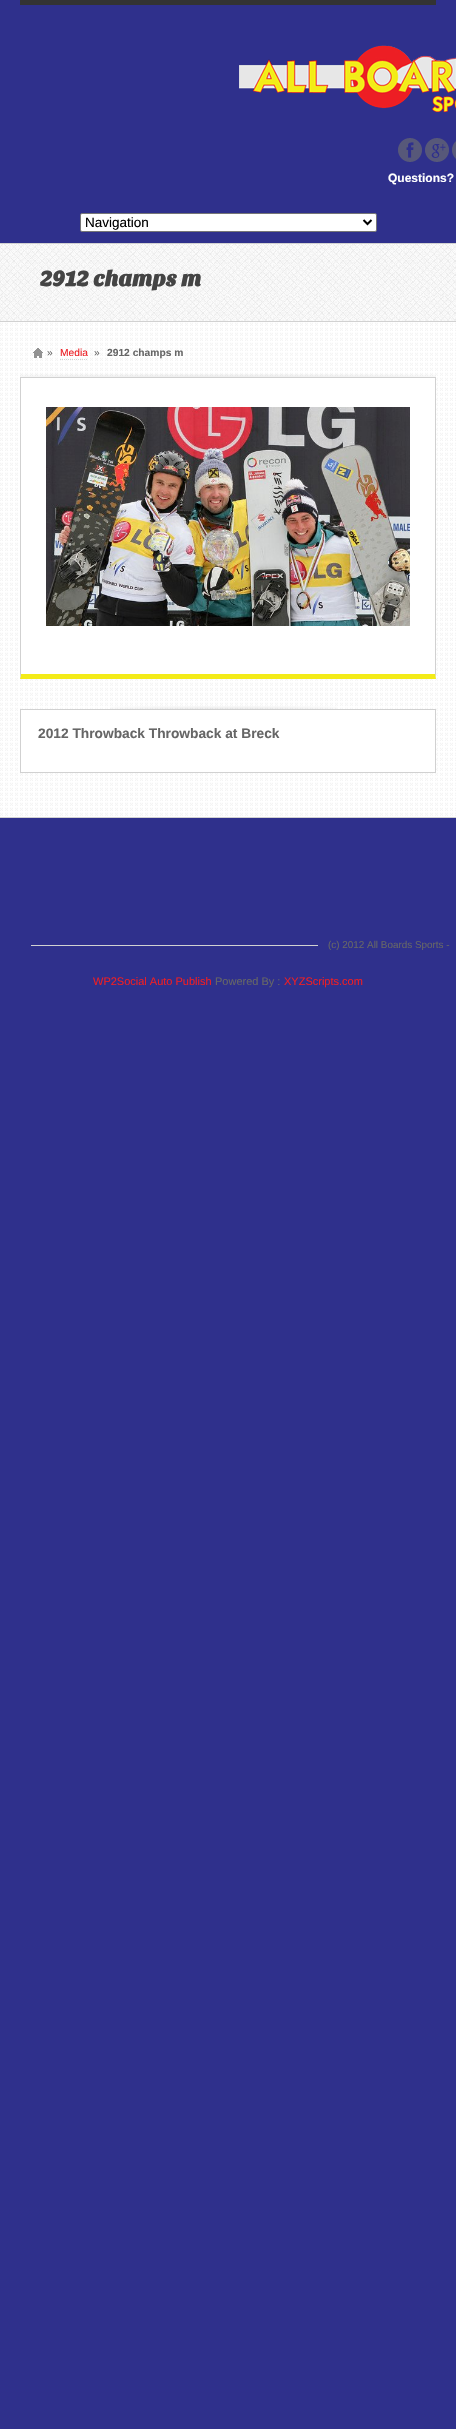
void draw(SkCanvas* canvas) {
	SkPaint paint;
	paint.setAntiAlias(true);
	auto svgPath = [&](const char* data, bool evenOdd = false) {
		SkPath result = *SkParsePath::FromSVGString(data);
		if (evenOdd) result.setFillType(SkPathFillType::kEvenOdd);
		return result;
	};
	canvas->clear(0xff2f308c);
	paint.setColor(0xff333333);
	canvas->drawRect(SkRect::MakeXYWH(20, 0, 416, 5), paint);
	canvas->drawImageRect(SkImages::DeferredFromEncodedData(SkData::MakeFromFileName("img1.png")), SkRect::MakeXYWH(239, 45, 217, 68), SkSamplingOptions());
	canvas->drawImageRect(SkImages::DeferredFromEncodedData(SkData::MakeFromFileName("img2.png")), SkRect::MakeXYWH(398, 138, 24, 24), SkSamplingOptions());
	canvas->drawImageRect(SkImages::DeferredFromEncodedData(SkData::MakeFromFileName("img3.png")), SkRect::MakeXYWH(425, 138, 24, 24), SkSamplingOptions());
	canvas->drawImageRect(SkImages::DeferredFromEncodedData(SkData::MakeFromFileName("img4.png")), SkRect::MakeXYWH(452, 141, 4, 18), SkSamplingOptions());
	SkFont f1(fontMgr->matchFamilyStyle("Liberation Sans", SkFontStyle::Bold()), 12);
	f1.setSubpixel(true);
	paint.setColor(0xffffffff);
	canvas->drawString("Questions?", 388, 182, f1, paint);
	canvas->drawRoundRect(SkRect::MakeXYWH(80.5, 213.5, 296, 18), 1.5, 1.5, paint);
	paint.setStroke(true);
	paint.setStrokeWidth(1);
	paint.setColor(0xff767676);
	canvas->drawRoundRect(SkRect::MakeXYWH(80.5, 213.5, 296, 18), 1.5, 1.5, paint);
	paint.setStrokeWidth(2);
	paint.setColor(0xff000000);
	canvas->drawPath(svgPath("M363.5 220L367.5 224L371.5 220"), paint);
	SkFont f2(fontMgr->matchFamilyStyle("Liberation Sans", SkFontStyle::Normal()), 13.5);
	f2.setSubpixel(true);
	paint.setStroke(false);
	canvas->drawString("Navigation", 85, 227, f2, paint);
	canvas->drawImageRect(SkImages::DeferredFromEncodedData(SkData::MakeFromFileName("img5.png")), SkRect::MakeXYWH(0, 244, 456, 77), SkSamplingOptions());
	paint.setColor(0xffd1d1d1);
	canvas->drawRect(SkRect::MakeXYWH(0, 243, 456, 1), paint);
	SkFont f3(fontMgr->matchFamilyStyle("Sansita One", SkFontStyle::Bold()), 22);
	f3.setSubpixel(true);
	paint.setColor(0xff444444);
	canvas->drawString("2912 champs m", 40, 286, f3, paint);
	canvas->drawImageRect(SkImages::DeferredFromEncodedData(SkData::MakeFromFileName("img6.png")), SkRect::MakeXYWH(0, 322, 456, 495), SkSamplingOptions());
	paint.setColor(0xffd1d1d1);
	canvas->drawRect(SkRect::MakeXYWH(0, 321, 456, 1), paint);
	canvas->drawImageRect(SkImages::DeferredFromEncodedData(SkData::MakeFromFileName("img7.png")), SkRect::MakeXYWH(33, 348, 10, 10), SkSamplingOptions());
	SkFont f4(fontMgr->matchFamilyStyle("Liberation Sans", SkFontStyle::Normal()), 10.25);
	f4.setSubpixel(true);
	paint.setColor(0xff666666);
	canvas->drawString("»", 47, 356, f4, paint);
	paint.setColor(0xffed1e24);
	canvas->drawString("Media", 60, 356, f4, paint);
	paint.setStroke(true);
	paint.setStrokeWidth(1);
	paint.setColor(0xffd1d1d1);
	paint.setPathEffect(SkDashPathEffect::Make({{1, 1}}, 0));
	canvas->drawPath(svgPath("M60 359.5H88"), paint);
	paint.setPathEffect(nullptr);
	paint.setStroke(false);
	paint.setColor(0xff666666);
	canvas->drawString("»", 94, 356, f4, paint);
	SkFont f5(fontMgr->matchFamilyStyle("Liberation Sans", SkFontStyle::Bold()), 10.25);
	f5.setSubpixel(true);
	canvas->drawString("2912 champs m", 107, 356, f5, paint);
	canvas->drawImageRect(SkImages::DeferredFromEncodedData(SkData::MakeFromFileName("img8.png")), SkRect::MakeXYWH(20, 374, 416, 3), SkSamplingOptions());
	paint.setColor(0xffffffff);
	canvas->drawRect(SkRect::MakeXYWH(21, 378, 412, 296), paint);
	paint.setColor(0xffd1d1d1);
	canvas->drawRect(SkRect::MakeXYWH(20, 377, 416, 1), paint);
	canvas->drawPath(svgPath("M436 377V679L435 674V378Z"), paint);
	paint.setColor(0xfff3eb18);
	canvas->drawPath(svgPath("M436 679H20L21 674H435Z"), paint);
	paint.setColor(0xffd1d1d1);
	canvas->drawPath(svgPath("M20 679V377L21 378V674Z"), paint);
	canvas->drawImageRect(SkImages::DeferredFromEncodedData(SkData::MakeFromFileName("img9.png")), SkRect::MakeXYWH(46, 407, 364, 219), SkSamplingOptions());
	canvas->drawImageRect(SkImages::DeferredFromEncodedData(SkData::MakeFromFileName("img10.png")), SkRect::MakeXYWH(110, 706, 227, 3), SkSamplingOptions());
	paint.setColor(0xffffffff);
	canvas->drawRect(SkRect::MakeXYWH(21, 710, 412, 61), paint);
	paint.setStroke(true);
	paint.setColor(0xffd1d1d1);
	canvas->drawRect(SkRect::MakeXYWH(20.5, 709.5, 415, 63), paint);
	SkFont f6(fontMgr->matchFamilyStyle("Liberation Sans", SkFontStyle::Bold()), 13.75);
	f6.setSubpixel(true);
	paint.setStroke(false);
	paint.setColor(0xff666666);
	canvas->drawString("2012 Throwback Throwback at Breck", 38, 738, f6, paint);
	paint.setColor(0xffd1d1d1);
	canvas->drawRect(SkRect::MakeXYWH(0, 817, 456, 1), paint);
	canvas->drawRect(SkRect::MakeXYWH(31, 945, 287, 1), paint);
	SkFont f7(fontMgr->matchFamilyStyle("Liberation Sans", SkFontStyle::Normal()), 9.9);
	f7.setSubpixel(true);
	paint.setColor(0xff666666);
	canvas->drawString("(c) 2012 All Boards Sports -", 328, 948, f7, paint);
	SkFont f8(fontMgr->matchFamilyStyle("Liberation Sans", SkFontStyle::Normal()), 11);
	f8.setSubpixel(true);
	paint.setColor(0xffed1e24);
	canvas->drawString("WP2Social Auto Publish", 93, 985, f8, paint);
	paint.setColor(0xff666666);
	canvas->drawString("Powered By :", 215, 985, f8, paint);
	paint.setColor(0xffed1e24);
	canvas->drawString("XYZScripts.com", 284, 985, f8, paint);
}
